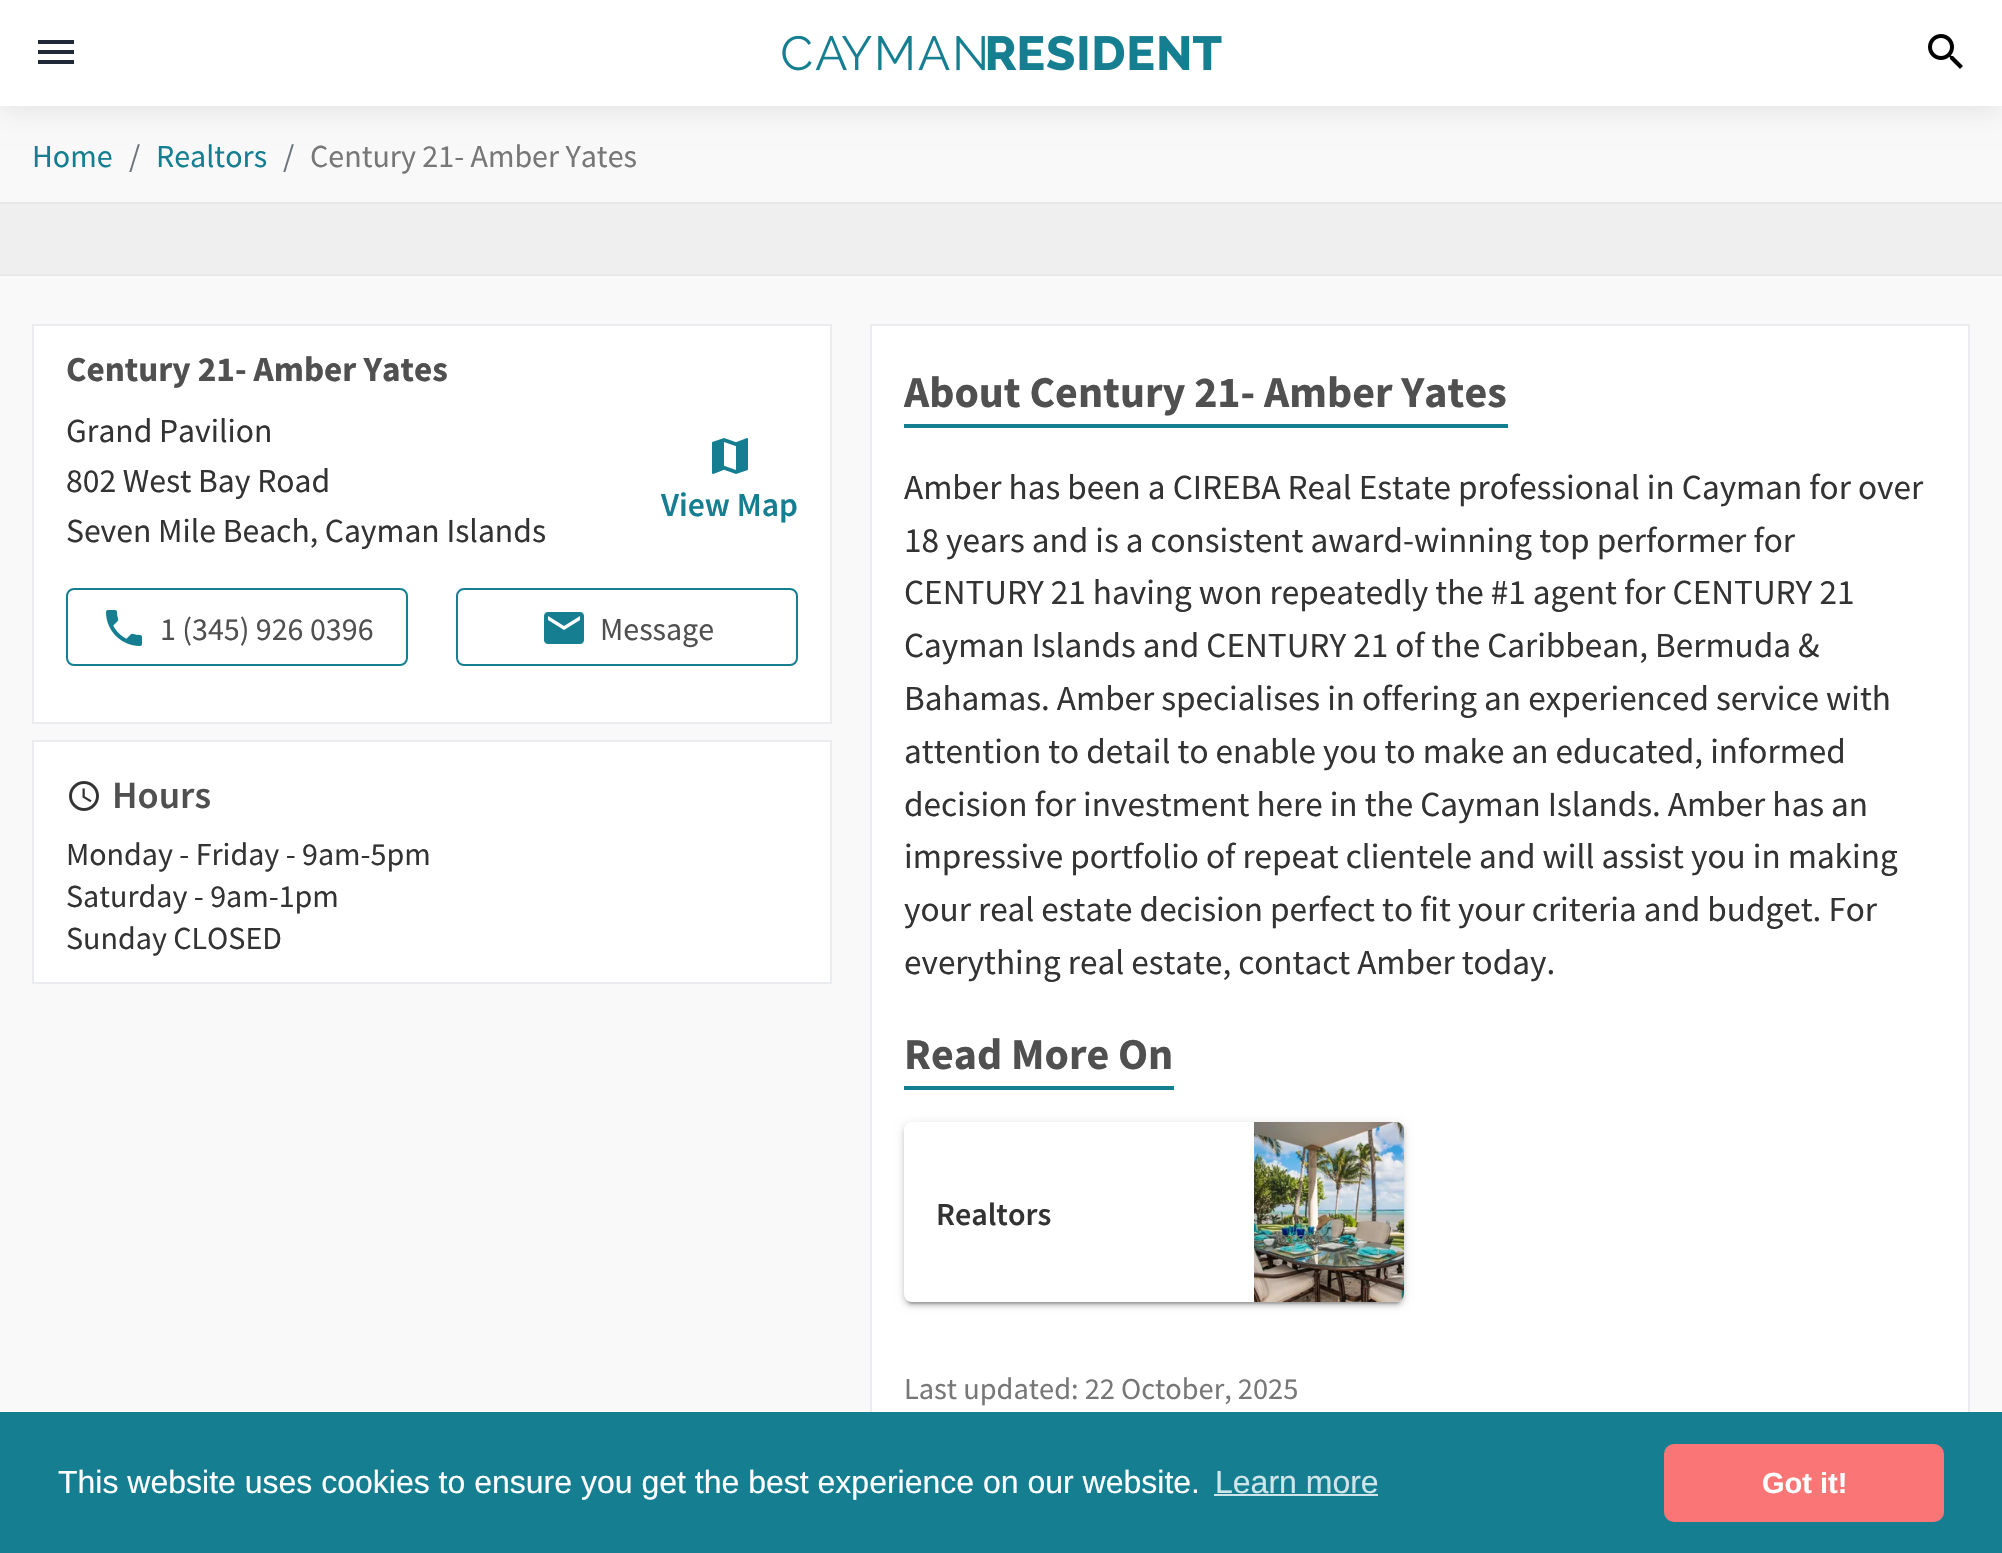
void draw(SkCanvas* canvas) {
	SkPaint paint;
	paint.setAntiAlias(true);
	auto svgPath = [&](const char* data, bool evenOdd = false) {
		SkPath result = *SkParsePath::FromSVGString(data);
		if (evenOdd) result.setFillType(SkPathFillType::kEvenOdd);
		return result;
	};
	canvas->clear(0xfff9f9f9);
	paint.setColor(0x1a000000);
	paint.setMaskFilter(SkMaskFilter::MakeBlur(kNormal_SkBlurStyle, 14));
	canvas->drawRect(SkRect::MakeXYWH(0, 2, 2002, 106), paint);
	paint.setMaskFilter(nullptr);
	paint.setColor(0xffffffff);
	canvas->drawRect(SkRect::MakeXYWH(0, 0, 2002, 106), paint);
	paint.setColor(0xff1f2937);
	canvas->drawPath(svgPath("M38 64V60H74V64ZM38 54V50H74V54ZM38 44V40H74V44Z"), paint);
	canvas->drawImageRect(SkImages::DeferredFromEncodedData(SkData::MakeFromFileName("img1.png")), SkRect::MakeXYWH(782, 35, 440, 36), SkSamplingOptions());
	canvas->drawImageRect(SkImages::DeferredFromEncodedData(SkData::MakeFromFileName("img2.png")), SkRect::MakeXYWH(1928, 34, 35, 35), SkSamplingOptions());
	SkFont f1(fontMgr->matchFamilyStyle("Source Sans Pro", SkFontStyle::Normal()), 32);
	f1.setSubpixel(true);
	paint.setColor(0xff157e91);
	canvas->drawString("Home", 32, 167, f1, paint);
	paint.setColor(0xff6c757d);
	canvas->drawString("/", 129, 167, f1, paint);
	paint.setColor(0xff157e91);
	canvas->drawString("Realtors", 156, 167, f1, paint);
	paint.setColor(0xff6c757d);
	canvas->drawString("/", 283, 167, f1, paint);
	paint.setColor(0xff777777);
	canvas->drawString("Century 21- Amber Yates", 310, 167, f1, paint);
	paint.setColor(0xffefefef);
	canvas->drawRect(SkRect::MakeXYWH(0, 204, 2002, 70), paint);
	paint.setColor(0xffe7e7e8);
	canvas->drawRect(SkRect::MakeXYWH(0, 202, 2002, 2), paint);
	canvas->drawRect(SkRect::MakeXYWH(0, 274, 2002, 2), paint);
	paint.setColor(0xffffffff);
	canvas->drawRect(SkRect::MakeXYWH(33, 325, 798, 398), paint);
	paint.setStroke(true);
	paint.setStrokeWidth(2);
	paint.setColor(0xffeaecef);
	canvas->drawRect(SkRect::MakeXYWH(33, 325, 798, 398), paint);
	SkFont f2(fontMgr->matchFamilyStyle("Source Sans Pro", SkFontStyle::Bold()), 35.2);
	f2.setSubpixel(true);
	paint.setStroke(false);
	paint.setColor(0xff505050);
	canvas->drawString("Century 21- Amber Yates", 66, 381, f2, paint);
	SkFont f3(fontMgr->matchFamilyStyle("Source Sans Pro", SkFontStyle::Normal()), 33.6);
	f3.setSubpixel(true);
	paint.setColor(0xff333333);
	canvas->drawString("Grand Pavilion", 66, 442, f3, paint);
	canvas->drawString("802 West Bay Road", 66, 492, f3, paint);
	canvas->drawString("Seven Mile Beach, Cayman Islands", 66, 542, f3, paint);
	canvas->drawImageRect(SkImages::DeferredFromEncodedData(SkData::MakeFromFileName("img3.png")), SkRect::MakeXYWH(712, 438, 36, 36), SkSamplingOptions());
	SkFont f4(fontMgr->matchFamilyStyle("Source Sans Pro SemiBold", SkFontStyle(600, SkFontStyle::kNormal_Width, SkFontStyle::kUpright_Slant)), 33.6);
	f4.setSubpixel(true);
	paint.setColor(0xff157e91);
	canvas->drawString("View Map", 661, 516, f4, paint);
	paint.setStroke(true);
	canvas->drawRoundRect(SkRect::MakeXYWH(67, 589, 340, 76), 7, 7, paint);
	canvas->drawImageRect(SkImages::DeferredFromEncodedData(SkData::MakeFromFileName("img4.png")), SkRect::MakeXYWH(106, 610, 36, 36), SkSamplingOptions());
	paint.setStroke(false);
	paint.setColor(0xff505050);
	canvas->drawString("1 (345) 926 0396", 160, 640, f1, paint);
	paint.setStroke(true);
	paint.setColor(0xff157e91);
	canvas->drawRoundRect(SkRect::MakeXYWH(457, 589, 340, 76), 7, 7, paint);
	canvas->drawImageRect(SkImages::DeferredFromEncodedData(SkData::MakeFromFileName("img5.png")), SkRect::MakeXYWH(544, 612, 40, 32), SkSamplingOptions());
	paint.setStroke(false);
	paint.setColor(0xff505050);
	canvas->drawString("Message", 600, 640, f1, paint);
	paint.setColor(0xffffffff);
	canvas->drawRect(SkRect::MakeXYWH(33, 741, 798, 242), paint);
	paint.setStroke(true);
	paint.setColor(0xffeaecef);
	canvas->drawRect(SkRect::MakeXYWH(33, 741, 798, 242), paint);
	canvas->drawImageRect(SkImages::DeferredFromEncodedData(SkData::MakeFromFileName("img6.png")), SkRect::MakeXYWH(69, 781, 30, 30), SkSamplingOptions());
	SkFont f5(fontMgr->matchFamilyStyle("Source Sans Pro SemiBold", SkFontStyle(600, SkFontStyle::kNormal_Width, SkFontStyle::kUpright_Slant)), 38.5);
	f5.setSubpixel(true);
	paint.setStroke(false);
	paint.setColor(0xff505050);
	canvas->drawString("Hours", 112, 808, f5, paint);
	paint.setColor(0xff333333);
	canvas->drawString("Monday - Friday - 9am-5pm", 66, 865, f1, paint);
	canvas->drawString("Saturday - 9am-1pm", 66, 907, f1, paint);
	canvas->drawString("Sunday CLOSED", 66, 949, f1, paint);
	paint.setColor(0xffffffff);
	canvas->drawRect(SkRect::MakeXYWH(872, 326, 1096, 1086), paint);
	paint.setStroke(true);
	paint.setColor(0xffeaecef);
	canvas->drawRect(SkRect::MakeXYWH(871, 325, 1098, 1120), paint);
	paint.setStroke(false);
	paint.setColor(0xff157e91);
	canvas->drawRect(SkRect::MakeXYWH(904, 424, 604, 4), paint);
	SkFont f6(fontMgr->matchFamilyStyle("Source Sans Pro", SkFontStyle::Bold()), 44);
	f6.setSubpixel(true);
	paint.setColor(0xff505050);
	canvas->drawString("About Century 21- Amber Yates", 904, 407, f6, paint);
	SkFont f7(fontMgr->matchFamilyStyle("Source Sans Pro", SkFontStyle::Normal()), 35.2);
	f7.setSubpixel(true);
	paint.setColor(0xff333333);
	canvas->drawString("Amber has been a CIREBA Real Estate professional in Cayman for over", 904, 499, f7, paint);
	canvas->drawString("18 years and is a consistent award-winning top performer for", 904, 552, f7, paint);
	canvas->drawString("CENTURY 21 having won repeatedly the #1 agent for CENTURY 21", 904, 604, f7, paint);
	canvas->drawString("Cayman Islands and CENTURY 21 of the Caribbean, Bermuda &", 904, 657, f7, paint);
	canvas->drawString("Bahamas. Amber specialises in offering an experienced service with", 904, 710, f7, paint);
	canvas->drawString("attention to detail to enable you to make an educated, informed", 904, 763, f7, paint);
	canvas->drawString("decision for investment here in the Cayman Islands. Amber has an", 904, 816, f7, paint);
	canvas->drawString("impressive portfolio of repeat clientele and will assist you in making", 904, 868, f7, paint);
	canvas->drawString("your real estate decision perfect to fit your criteria and budget. For", 904, 921, f7, paint);
	canvas->drawString("everything real estate, contact Amber today.", 904, 974, f7, paint);
	paint.setColor(0xff157e91);
	canvas->drawRect(SkRect::MakeXYWH(904, 1086, 270, 4), paint);
	paint.setColor(0xff505050);
	canvas->drawString("Read More On", 904, 1069, f6, paint);
	paint.setColor(0x1f000000);
	paint.setMaskFilter(SkMaskFilter::MakeBlur(kNormal_SkBlurStyle, 5));
	canvas->drawRoundRect(SkRect::MakeXYWH(904, 1124, 500, 180), 8, 8, paint);
	paint.setMaskFilter(nullptr);
	paint.setColor(0x33000000);
	paint.setMaskFilter(SkMaskFilter::MakeBlur(kNormal_SkBlurStyle, 1));
	canvas->drawRoundRect(SkRect::MakeXYWH(908, 1132, 492, 172), 4, 4, paint);
	paint.setMaskFilter(nullptr);
	paint.setColor(0x24000000);
	paint.setMaskFilter(SkMaskFilter::MakeBlur(kNormal_SkBlurStyle, 2));
	canvas->drawRoundRect(SkRect::MakeXYWH(904, 1126, 500, 180), 8, 8, paint);
	paint.setMaskFilter(nullptr);
	paint.setColor(0xffffffff);
	canvas->drawRoundRect(SkRect::MakeXYWH(904, 1122, 500, 180), 8, 8, paint);
	SkFont f8(fontMgr->matchFamilyStyle("Source Sans Pro SemiBold", SkFontStyle(600, SkFontStyle::kNormal_Width, SkFontStyle::kUpright_Slant)), 32);
	f8.setSubpixel(true);
	paint.setColor(0xff333333);
	canvas->drawString("Realtors", 936, 1225, f8, paint);
	canvas->drawImageRect(SkImages::DeferredFromEncodedData(SkData::MakeFromFileName("img7.png")), SkRect::MakeXYWH(1254, 1122, 150, 180), SkSamplingOptions());
	SkFont f9(fontMgr->matchFamilyStyle("Source Sans Pro", SkFontStyle::Normal()), 30.4);
	f9.setSubpixel(true);
	paint.setColor(0xff777777);
	canvas->drawString("Last updated: 22 October, 2025", 904, 1399, f9, paint);
	paint.setColor(0xff157e91);
	canvas->drawRect(SkRect::MakeXYWH(0, 1412, 2002, 141), paint);
	SkFont f10(fontMgr->matchFamilyStyle("Liberation Sans", SkFontStyle::Normal()), 32);
	f10.setSubpixel(true);
	paint.setColor(0xffffffff);
	canvas->drawString("This website uses cookies to ensure you get the best experience on our website.", 58, 1493, f10, paint);
	paint.setColor(0xffd0e5e9);
	canvas->drawString("Learn more", 1215, 1493, f10, paint);
	canvas->drawRect(SkRect::MakeXYWH(1214, 1494, 164, 2), paint);
	paint.setColor(0xfffa7676);
	canvas->drawRoundRect(SkRect::MakeXYWH(1664, 1444, 280, 78), 10, 10, paint);
	SkFont f11(fontMgr->matchFamilyStyle("Liberation Sans", SkFontStyle::Bold()), 29);
	f11.setSubpixel(true);
	paint.setColor(0xffffffff);
	canvas->drawString("Got it!", 1762, 1493, f11, paint);
}
